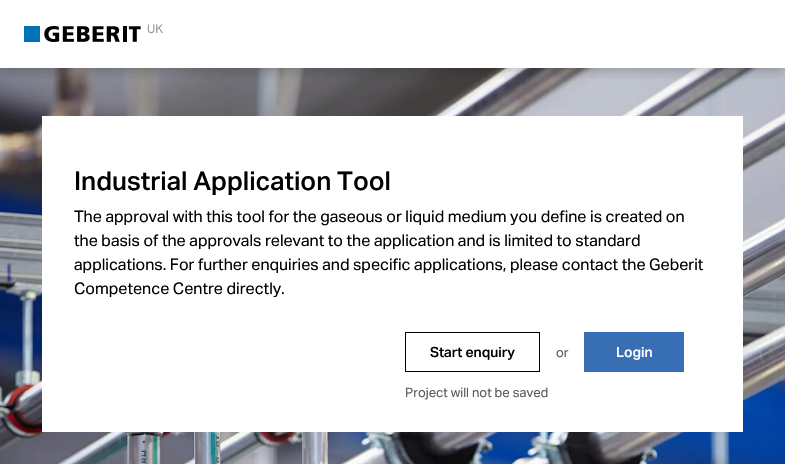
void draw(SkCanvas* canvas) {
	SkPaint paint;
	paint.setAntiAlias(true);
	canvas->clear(0xffffffff);
	canvas->drawImageRect(SkImages::DeferredFromEncodedData(SkData::MakeFromFileName("img2.png")), SkRect::MakeXYWH(0, 68, 785, 396), SkSamplingOptions());
	canvas->save();
	canvas->clipRect(SkRect::MakeXYWH(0, 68, 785, 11));
	paint.setColor(0x33000000);
	paint.setMaskFilter(SkMaskFilter::MakeBlur(kNormal_SkBlurStyle, 6));
	canvas->drawRect(SkRect::MakeXYWH(0, 3, 785, 68), paint);
	paint.setMaskFilter(nullptr);
	canvas->restore();
	canvas->drawImageRect(SkImages::DeferredFromEncodedData(SkData::MakeFromFileName("img1.png")), SkRect::MakeXYWH(24, 26, 117, 16), SkSamplingOptions());
	SkFont f1(fontMgr->matchFamilyStyle("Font", SkFontStyle::Normal()), 12);
	f1.setSubpixel(true);
	paint.setColor(0xff999999);
	canvas->drawString("UK", 147, 33, f1, paint);
	paint.setColor(0xffffffff);
	canvas->drawRect(SkRect::MakeXYWH(42, 116, 701, 316), paint);
	SkFont f2(fontMgr->matchFamilyStyle("Font", SkFontStyle(500, SkFontStyle::kNormal_Width, SkFontStyle::kUpright_Slant)), 26);
	f2.setSubpixel(true);
	paint.setColor(0xff000000);
	canvas->drawString("Industrial Application Tool", 74, 190, f2, paint);
	SkFont f3(fontMgr->matchFamilyStyle("Font", SkFontStyle::Normal()), 16);
	f3.setSubpixel(true);
	canvas->drawString("The approval with this tool for the gaseous or liquid medium you define is created on", 74, 222, f3, paint);
	canvas->drawString("the basis of the approvals relevant to the application and is limited to standard", 74, 246, f3, paint);
	canvas->drawString("applications. For further enquiries and specific applications, please contact the Geberit", 74, 270, f3, paint);
	canvas->drawString("Competence Centre directly.", 74, 294, f3, paint);
	paint.setStroke(true);
	paint.setStrokeWidth(1);
	canvas->drawRect(SkRect::MakeXYWH(405.5, 332.5, 134, 39), paint);
	SkFont f4(fontMgr->matchFamilyStyle("Font", SkFontStyle(500, SkFontStyle::kNormal_Width, SkFontStyle::kUpright_Slant)), 14);
	f4.setSubpixel(true);
	paint.setStroke(false);
	canvas->drawString("Start enquiry", 430, 357, f4, paint);
	SkFont f5(fontMgr->matchFamilyStyle("Font", SkFontStyle::Normal()), 13);
	f5.setSubpixel(true);
	paint.setColor(0xff5c5c5c);
	canvas->drawString("Project will not be saved", 405, 397, f5, paint);
	canvas->drawString("or", 556, 357, f5, paint);
	paint.setColor(0xff376eb4);
	canvas->drawRect(SkRect::MakeXYWH(584, 332, 100, 40), paint);
	paint.setColor(0xffffffff);
	canvas->drawString("Login", 616, 357, f4, paint);
}
